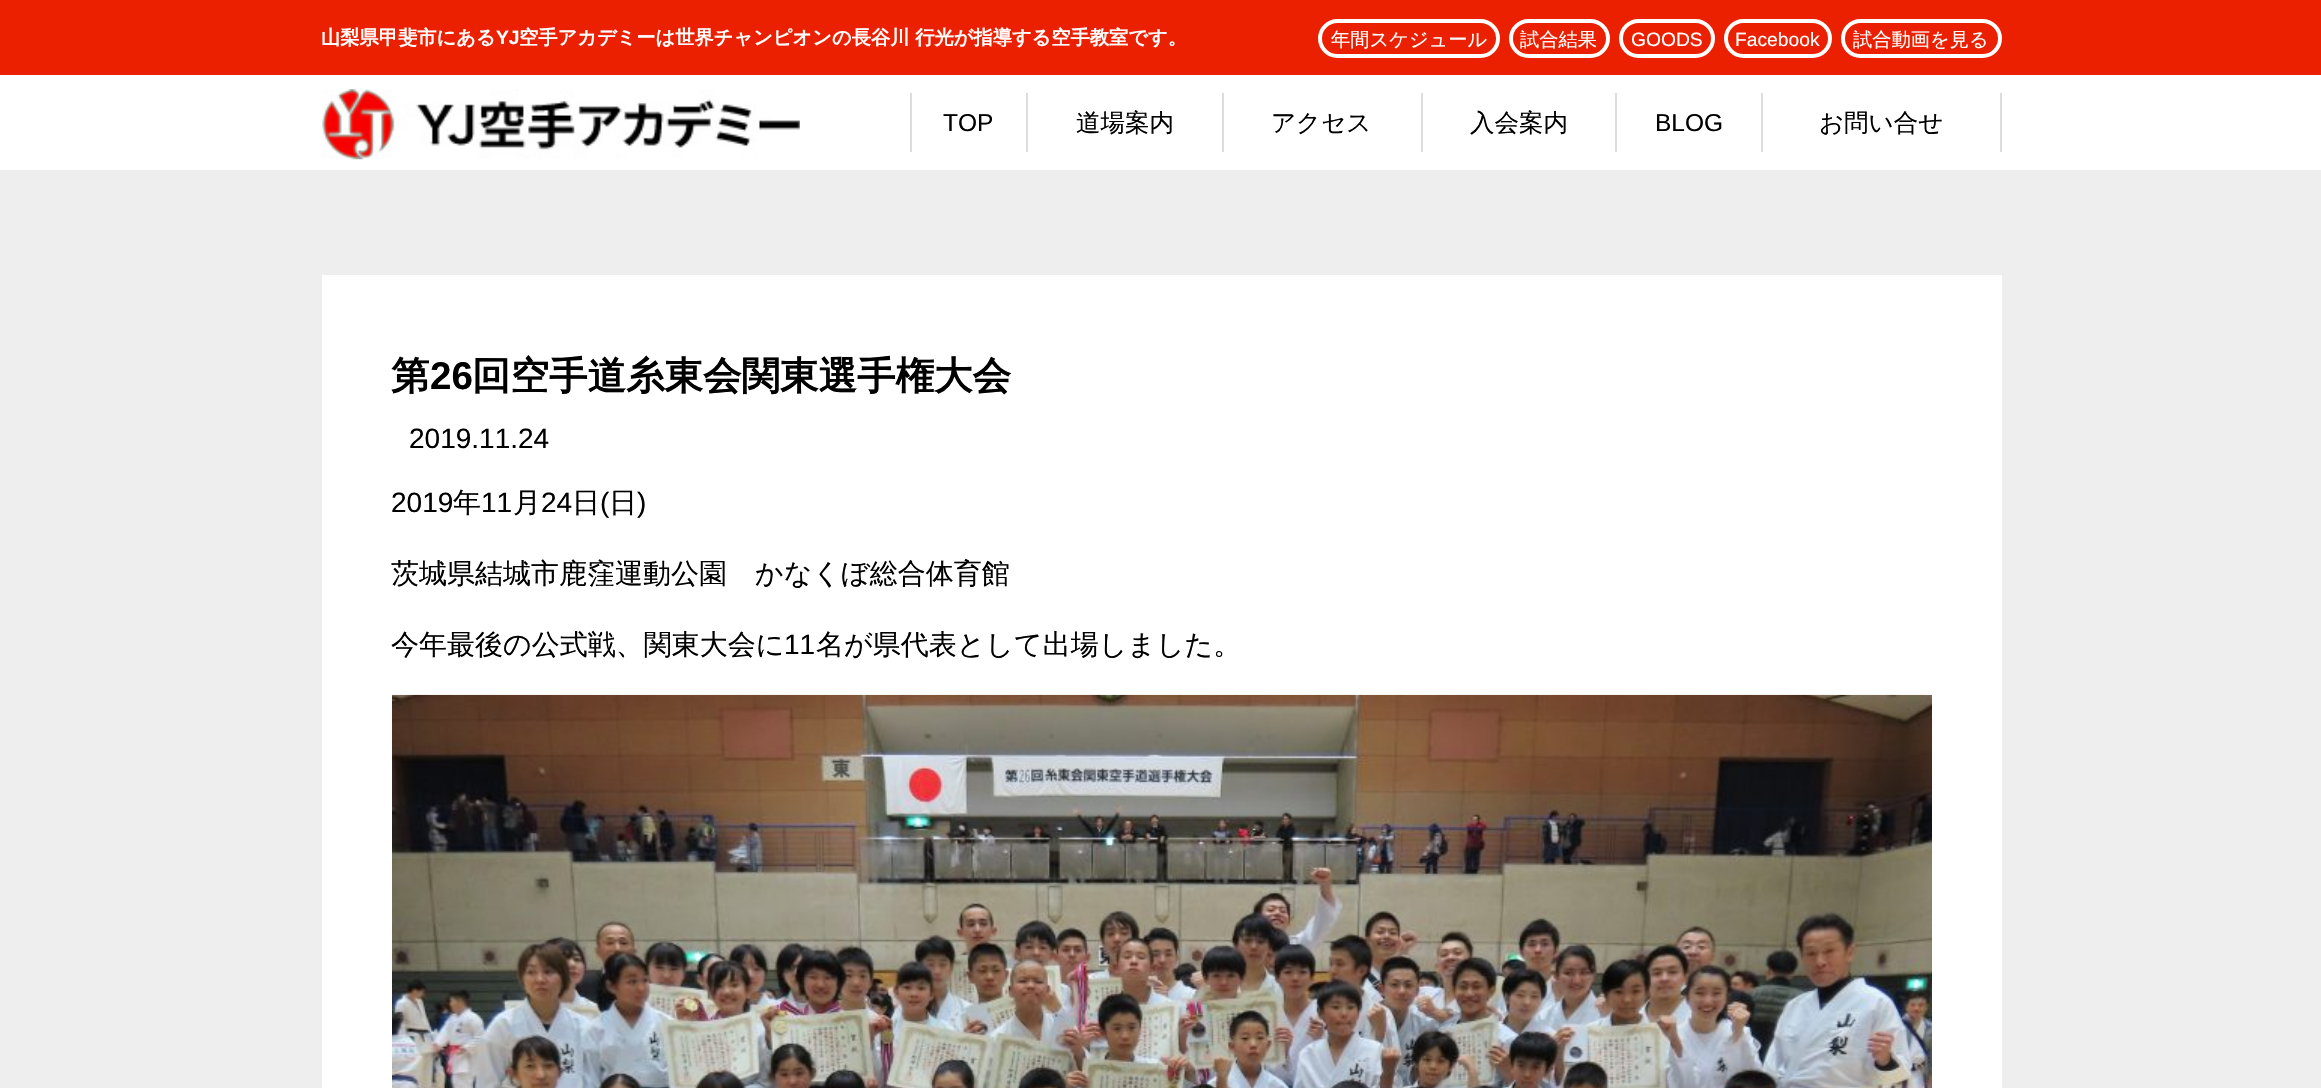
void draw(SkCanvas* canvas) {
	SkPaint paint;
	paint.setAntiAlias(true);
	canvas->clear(0xffffffff);
	paint.setColor(0xffeb2000);
	canvas->drawRect(SkRect::MakeXYWH(0, 0, 2321, 75), paint);
	SkFont f1(fontMgr->matchFamilyStyle("WenQuanYi Zen Hei", SkFontStyle::Bold()), 19.25);
	f1.setSubpixel(true);
	paint.setColor(0xffffffff);
	canvas->drawString("山梨県甲斐市にある", 321, 44, f1, paint);
	SkFont f2(fontMgr->matchFamilyStyle("Liberation Sans", SkFontStyle::Bold()), 19.25);
	f2.setSubpixel(true);
	canvas->drawString("YJ", 496, 44, f2, paint);
	canvas->drawString("空手アカデミーは世界チャンピオンの長谷川 行光が指導する空手教室です。", 519, 44, f1, paint);
	paint.setStroke(true);
	paint.setStrokeWidth(4);
	canvas->drawRoundRect(SkRect::MakeXYWH(1320, 21, 178, 35), 17.5, 17.5, paint);
	SkFont f3(fontMgr->matchFamilyStyle("WenQuanYi Zen Hei", SkFontStyle(500, SkFontStyle::kNormal_Width, SkFontStyle::kUpright_Slant)), 19.25);
	f3.setSubpixel(true);
	paint.setStroke(false);
	canvas->drawString("年間スケジュール", 1331, 46, f3, paint);
	paint.setStroke(true);
	canvas->drawRoundRect(SkRect::MakeXYWH(1511, 21, 97, 35), 17.5, 17.5, paint);
	paint.setStroke(false);
	canvas->drawString("試合結果", 1520, 46, f3, paint);
	paint.setStroke(true);
	canvas->drawRoundRect(SkRect::MakeXYWH(1621, 21, 92, 35), 17.5, 17.5, paint);
	SkFont f4(fontMgr->matchFamilyStyle("Liberation Sans", SkFontStyle::Normal()), 19.25);
	f4.setSubpixel(true);
	paint.setStroke(false);
	canvas->drawString("GOODS", 1631, 46, f4, paint);
	paint.setStroke(true);
	canvas->drawRoundRect(SkRect::MakeXYWH(1726, 21, 104, 35), 17.5, 17.5, paint);
	paint.setStroke(false);
	canvas->drawString("Facebook", 1735, 46, f4, paint);
	paint.setStroke(true);
	canvas->drawRoundRect(SkRect::MakeXYWH(1843, 21, 157, 35), 17.5, 17.5, paint);
	paint.setStroke(false);
	canvas->drawString("試合動画を見る", 1853, 46, f3, paint);
	canvas->drawImageRect(SkImages::DeferredFromEncodedData(SkData::MakeFromFileName("img1.png")), SkRect::MakeXYWH(322, 89, 478, 71), SkSamplingOptions());
	paint.setColor(0xffdddddd);
	canvas->drawRect(SkRect::MakeXYWH(1026, 93, 2, 59), paint);
	canvas->drawRect(SkRect::MakeXYWH(910, 93, 2, 59), paint);
	SkFont f5(fontMgr->matchFamilyStyle("Liberation Sans", SkFontStyle::Normal()), 24.5);
	f5.setSubpixel(true);
	paint.setColor(0xff000000);
	canvas->drawString("TOP", 943, 131, f5, paint);
	paint.setColor(0xffdddddd);
	canvas->drawRect(SkRect::MakeXYWH(1222, 93, 2, 59), paint);
	SkFont f6(fontMgr->matchFamilyStyle("WenQuanYi Zen Hei", SkFontStyle(500, SkFontStyle::kNormal_Width, SkFontStyle::kUpright_Slant)), 24.5);
	f6.setSubpixel(true);
	paint.setColor(0xff000000);
	canvas->drawString("道場案内", 1076, 131, f6, paint);
	paint.setColor(0xffdddddd);
	canvas->drawRect(SkRect::MakeXYWH(1421, 93, 2, 59), paint);
	paint.setColor(0xff000000);
	canvas->drawString("アクセス", 1271, 131, f6, paint);
	paint.setColor(0xffdddddd);
	canvas->drawRect(SkRect::MakeXYWH(1615, 93, 2, 59), paint);
	paint.setColor(0xff000000);
	canvas->drawString("入会案内", 1470, 131, f6, paint);
	paint.setColor(0xffdddddd);
	canvas->drawRect(SkRect::MakeXYWH(1761, 93, 2, 59), paint);
	paint.setColor(0xff000000);
	canvas->drawString("BLOG", 1655, 131, f5, paint);
	paint.setColor(0xffdddddd);
	canvas->drawRect(SkRect::MakeXYWH(2000, 93, 2, 59), paint);
	paint.setColor(0xff000000);
	canvas->drawString("お問い合せ", 1819, 131, f6, paint);
	paint.setColor(0xffeeeeee);
	canvas->drawRect(SkRect::MakeXYWH(0, 170, 2321, 918), paint);
	paint.setColor(0xffffffff);
	canvas->drawRect(SkRect::MakeXYWH(322, 275, 1680, 813), paint);
	SkFont f7(fontMgr->matchFamilyStyle("WenQuanYi Zen Hei", SkFontStyle::Bold()), 38.5);
	f7.setSubpixel(true);
	paint.setColor(0xff000000);
	canvas->drawString("第", 391, 389, f7, paint);
	SkFont f8(fontMgr->matchFamilyStyle("Liberation Sans", SkFontStyle::Bold()), 38.5);
	f8.setSubpixel(true);
	canvas->drawString("26", 430, 389, f8, paint);
	canvas->drawString("回空手道糸東会関東選手権大会", 472, 389, f7, paint);
	SkFont f9(fontMgr->matchFamilyStyle("Liberation Sans", SkFontStyle::Normal()), 28);
	f9.setSubpixel(true);
	canvas->drawString("2019.11.24", 409, 448, f9, paint);
	canvas->drawString("2019", 391, 512, f9, paint);
	SkFont f10(fontMgr->matchFamilyStyle("WenQuanYi Zen Hei", SkFontStyle(500, SkFontStyle::kNormal_Width, SkFontStyle::kUpright_Slant)), 28);
	f10.setSubpixel(true);
	canvas->drawString("年", 453, 512, f10, paint);
	canvas->drawString("11", 481, 512, f9, paint);
	canvas->drawString("月", 513, 512, f10, paint);
	canvas->drawString("24", 541, 512, f9, paint);
	canvas->drawString("日", 572, 512, f10, paint);
	canvas->drawString("(", 600, 512, f9, paint);
	canvas->drawString("日", 609, 512, f10, paint);
	canvas->drawString(")", 637, 512, f9, paint);
	canvas->drawString("茨城県結城市鹿窪運動公園　かなくぼ総合体育館", 391, 583, f10, paint);
	canvas->drawString("今年最後の公式戦、関東大会に", 391, 654, f10, paint);
	canvas->drawString("11", 784, 654, f9, paint);
	canvas->drawString("名が県代表として出場しました。", 816, 654, f10, paint);
	canvas->drawImageRect(SkImages::DeferredFromEncodedData(SkData::MakeFromFileName("img2.png")), SkRect::MakeXYWH(392, 694, 1540, 394), SkSamplingOptions());
}
